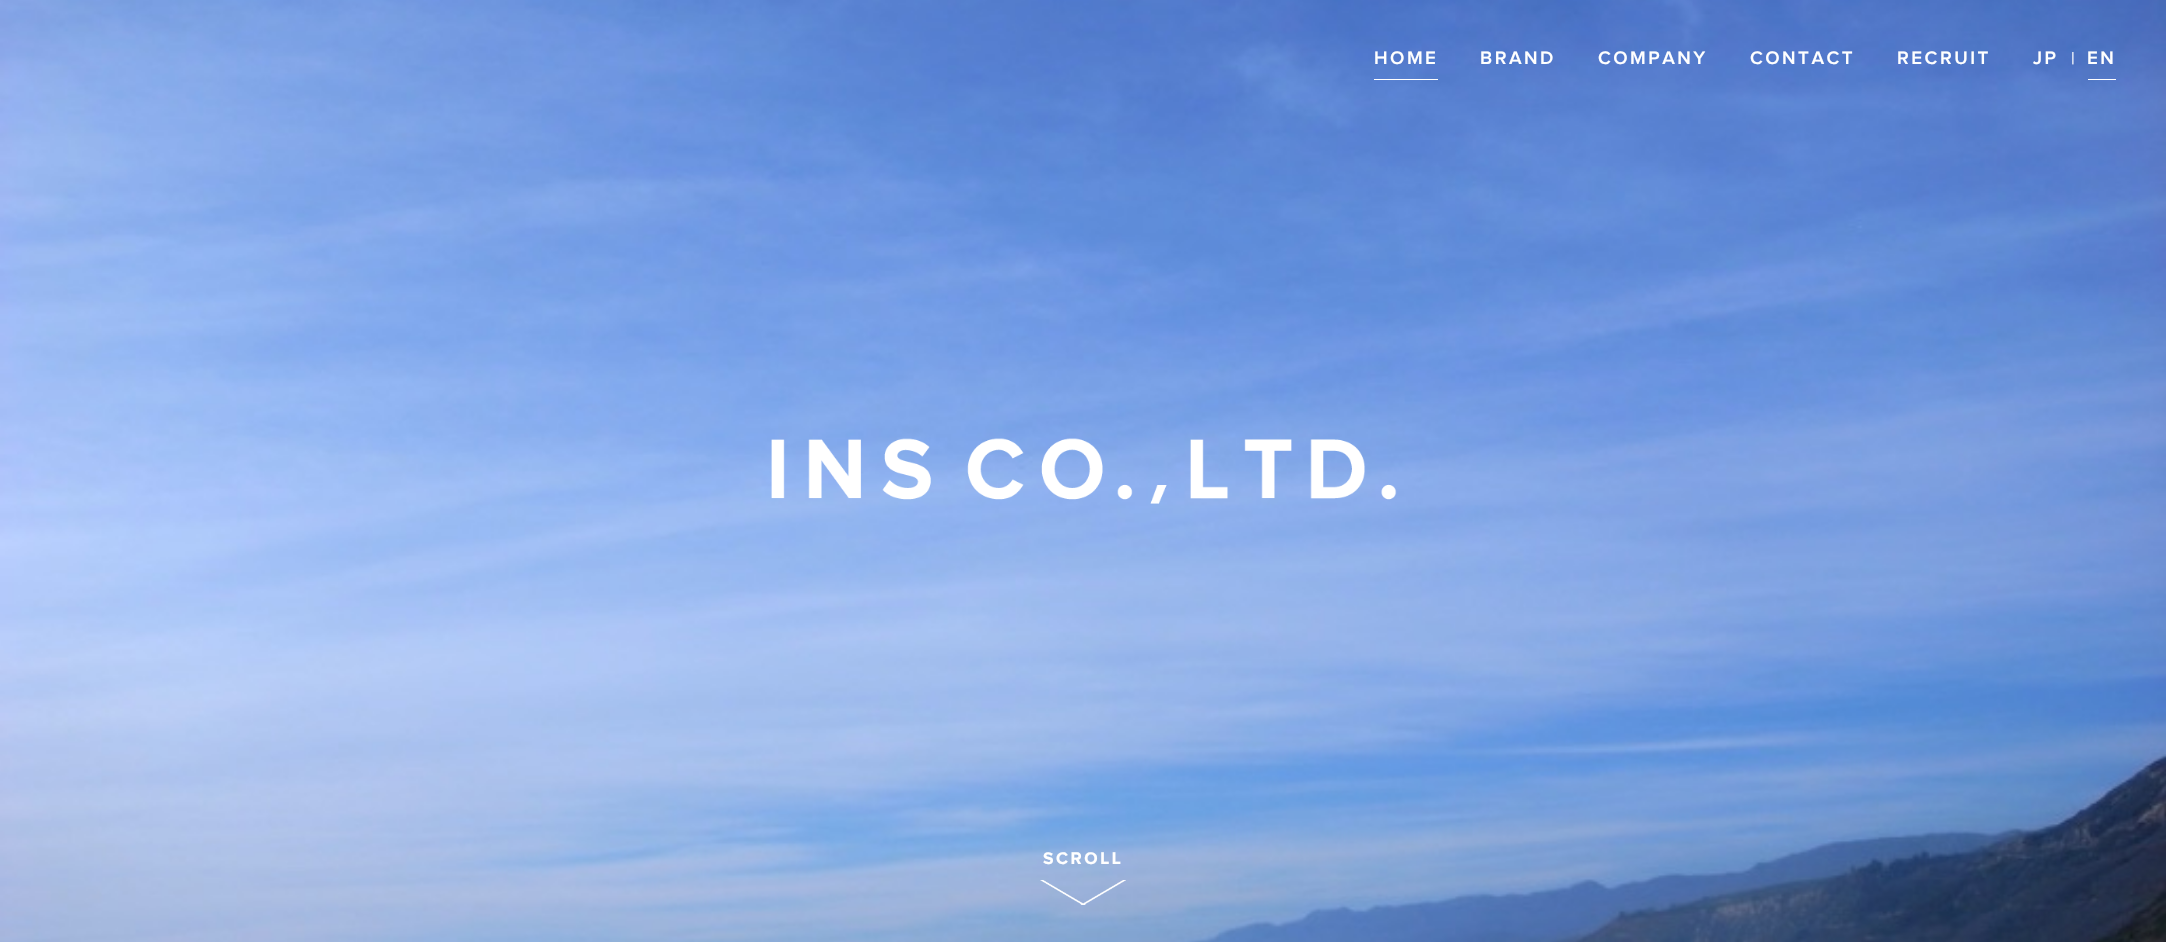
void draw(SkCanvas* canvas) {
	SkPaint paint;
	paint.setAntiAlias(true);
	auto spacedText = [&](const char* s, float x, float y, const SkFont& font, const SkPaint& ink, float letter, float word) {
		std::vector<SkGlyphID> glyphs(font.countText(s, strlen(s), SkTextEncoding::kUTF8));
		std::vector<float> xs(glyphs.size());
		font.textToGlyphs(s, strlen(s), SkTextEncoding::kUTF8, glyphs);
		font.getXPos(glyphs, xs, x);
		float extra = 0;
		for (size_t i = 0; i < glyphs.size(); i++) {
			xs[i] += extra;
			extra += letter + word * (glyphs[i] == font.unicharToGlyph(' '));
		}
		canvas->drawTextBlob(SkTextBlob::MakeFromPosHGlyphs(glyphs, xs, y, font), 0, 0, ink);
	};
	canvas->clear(0xffffffff);
	canvas->drawImageRect(SkImages::DeferredFromEncodedData(SkData::MakeFromFileName("img1.png")), SkRect::MakeXYWH(0, 0, 2166, 942), SkSamplingOptions());
	canvas->drawImageRect(SkImages::DeferredFromEncodedData(SkData::MakeFromFileName("img2.png")), SkRect::MakeXYWH(771, 438, 626, 66), SkSamplingOptions());
	SkFont f1(fontMgr->matchFamilyStyle("Proxima Nova", SkFontStyle(600, SkFontStyle::kNormal_Width, SkFontStyle::kUpright_Slant)), 18.75);
	f1.setSubpixel(true);
	paint.setColor(0xffffffff);
	spacedText("HOME", 1374, 64, f1, paint, 2.5, 0);
	canvas->drawRect(SkRect::MakeXYWH(1374, 79, 64, 1), paint);
	spacedText("BRAND", 1480, 64, f1, paint, 2.5, 0);
	spacedText("COMPANY", 1598, 64, f1, paint, 2.5, 0);
	spacedText("CONTACT", 1750, 64, f1, paint, 2.5, 0);
	spacedText("RECRUIT", 1897, 64, f1, paint, 2.5, 0);
	spacedText("JP", 2033, 64, f1, paint, 2.5, 0);
	SkFont f2(fontMgr->matchFamilyStyle("Proxima Nova", SkFontStyle::Normal()), 17.5);
	f2.setSubpixel(true);
	canvas->drawString("|", 2071, 64, f2, paint);
	spacedText("EN", 2087, 64, f1, paint, 2.5, 0);
	canvas->drawRect(SkRect::MakeXYWH(2088, 79, 28, 1), paint);
	SkFont f3(fontMgr->matchFamilyStyle("Proxima Nova", SkFontStyle::Bold()), 17.5);
	f3.setSubpixel(true);
	spacedText("SCROLL", 1043, 864, f3, paint, 2.5, 0);
	canvas->drawImageRect(SkImages::DeferredFromEncodedData(SkData::MakeFromFileName("img3.png")), SkRect::MakeXYWH(1040, 880, 86, 25), SkSamplingOptions());
}
